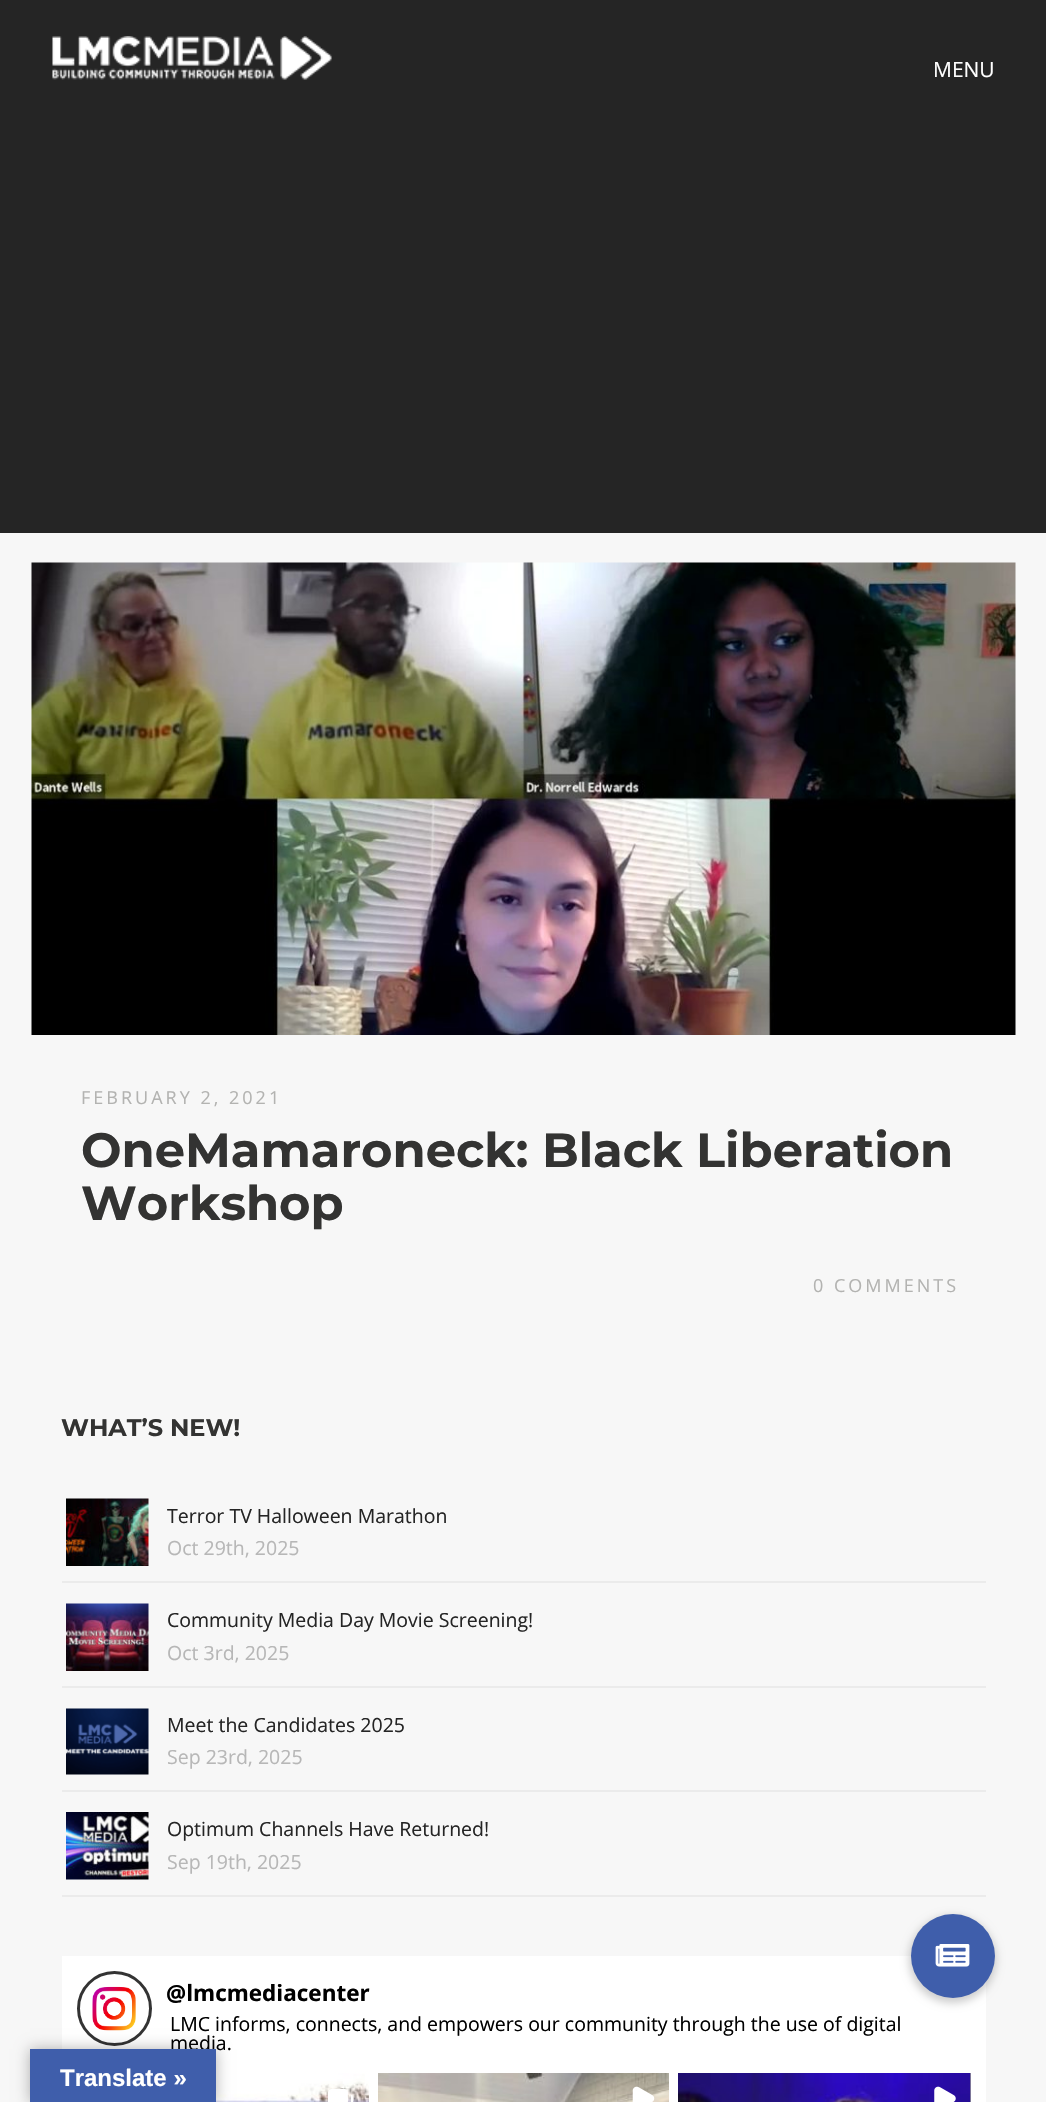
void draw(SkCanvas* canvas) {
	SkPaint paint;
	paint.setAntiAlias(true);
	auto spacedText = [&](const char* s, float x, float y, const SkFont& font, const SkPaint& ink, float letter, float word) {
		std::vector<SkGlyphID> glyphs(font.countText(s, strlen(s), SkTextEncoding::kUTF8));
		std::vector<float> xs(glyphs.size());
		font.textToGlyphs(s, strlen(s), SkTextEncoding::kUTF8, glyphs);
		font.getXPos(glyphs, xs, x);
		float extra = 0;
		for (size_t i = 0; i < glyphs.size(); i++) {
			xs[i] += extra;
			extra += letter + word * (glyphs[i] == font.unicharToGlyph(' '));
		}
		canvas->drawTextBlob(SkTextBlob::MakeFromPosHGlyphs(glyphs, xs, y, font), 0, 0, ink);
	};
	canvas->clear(0xfff7f7f7);
	paint.setColor(0xff252525);
	canvas->drawRect(SkRect::MakeXYWH(0, 0, 1046, 533), paint);
	canvas->drawImageRect(SkImages::DeferredFromEncodedData(SkData::MakeFromFileName("img1.png")), SkRect::MakeXYWH(52, 36, 280, 44), SkSamplingOptions());
	SkFont f1(fontMgr->matchFamilyStyle("Open Sans", SkFontStyle::Normal()), 21);
	f1.setSubpixel(true);
	paint.setColor(0xffffffff);
	canvas->drawString("MENU", 933, 77, f1, paint);
	canvas->drawImageRect(SkImages::DeferredFromEncodedData(SkData::MakeFromFileName("img2.png")), SkRect::MakeXYWH(31, 562, 985, 473), SkSamplingOptions());
	SkFont f2(fontMgr->matchFamilyStyle("Open Sans", SkFontStyle::Normal()), 18);
	f2.setSubpixel(true);
	paint.setColor(0xffb3b3b1);
	spacedText("FEBRUARY 2, 2021", 81, 1104, f2, paint, 3, 0);
	SkFont f3(fontMgr->matchFamilyStyle("Montserrat", SkFontStyle::Bold()), 48);
	f3.setSubpixel(true);
	paint.setColor(0xff333332);
	canvas->drawString("OneMamaroneck: Black Liberation", 81, 1167, f3, paint);
	canvas->drawString("Workshop", 81, 1220, f3, paint);
	paint.setColor(0xffb3b3b1);
	spacedText("0 COMMENTS", 813, 1292, f2, paint, 3, 0);
	SkFont f4(fontMgr->matchFamilyStyle("Montserrat", SkFontStyle::Bold()), 24);
	f4.setSubpixel(true);
	paint.setColor(0xff333332);
	canvas->drawString("WHAT’S NEW!", 61, 1436, f4, paint);
	paint.setColor(0xffebebeb);
	canvas->drawRect(SkRect::MakeXYWH(62, 1581, 924, 2), paint);
	canvas->drawImageRect(SkImages::DeferredFromEncodedData(SkData::MakeFromFileName("img3.png")), SkRect::MakeXYWH(66, 1498, 83, 68), SkSamplingOptions());
	SkFont f5(fontMgr->matchFamilyStyle("Open Sans", SkFontStyle::Normal()), 19.5);
	f5.setSubpixel(true);
	paint.setColor(0xff252525);
	canvas->drawString("Terror TV Halloween Marathon", 167, 1523, f5, paint);
	paint.setColor(0xffb7b7b7);
	canvas->drawString("Oct 29th, 2025", 167, 1555, f5, paint);
	paint.setColor(0xffebebeb);
	canvas->drawRect(SkRect::MakeXYWH(62, 1686, 924, 2), paint);
	canvas->drawImageRect(SkImages::DeferredFromEncodedData(SkData::MakeFromFileName("img4.png")), SkRect::MakeXYWH(66, 1603, 83, 68), SkSamplingOptions());
	paint.setColor(0xff252525);
	canvas->drawString("Community Media Day Movie Screening!", 167, 1627, f5, paint);
	paint.setColor(0xffb7b7b7);
	canvas->drawString("Oct 3rd, 2025", 167, 1660, f5, paint);
	paint.setColor(0xffebebeb);
	canvas->drawRect(SkRect::MakeXYWH(62, 1790, 924, 2), paint);
	canvas->drawImageRect(SkImages::DeferredFromEncodedData(SkData::MakeFromFileName("img5.png")), SkRect::MakeXYWH(66, 1708, 83, 67), SkSamplingOptions());
	paint.setColor(0xff252525);
	canvas->drawString("Meet the Candidates 2025", 167, 1732, f5, paint);
	paint.setColor(0xffb7b7b7);
	canvas->drawString("Sep 23rd, 2025", 167, 1764, f5, paint);
	paint.setColor(0xffebebeb);
	canvas->drawRect(SkRect::MakeXYWH(62, 1895, 924, 2), paint);
	canvas->drawImageRect(SkImages::DeferredFromEncodedData(SkData::MakeFromFileName("img6.png")), SkRect::MakeXYWH(66, 1812, 83, 68), SkSamplingOptions());
	paint.setColor(0xff252525);
	canvas->drawString("Optimum Channels Have Returned!", 167, 1836, f5, paint);
	paint.setColor(0xffb7b7b7);
	canvas->drawString("Sep 19th, 2025", 167, 1869, f5, paint);
	paint.setColor(0xffffffff);
	canvas->drawRect(SkRect::MakeXYWH(62, 1956, 924, 146), paint);
	paint.setStroke(true);
	paint.setStrokeWidth(3);
	paint.setColor(0xff333333);
	canvas->drawCircle(114.5, 2008.5, 36, paint);
	canvas->drawImageRect(SkImages::DeferredFromEncodedData(SkData::MakeFromFileName("img7.png")), SkRect::MakeXYWH(92, 1986, 44, 45), SkSamplingOptions());
	SkFont f6(fontMgr->matchFamilyStyle("Open Sans", SkFontStyle::Bold()), 22.5);
	f6.setSubpixel(true);
	paint.setStroke(false);
	paint.setColor(0xff000000);
	canvas->drawString("@lmcmediacenter", 166, 2001, f6, paint);
	canvas->drawString("LMC informs, connects, and empowers our community through the use of digital", 170, 2031, f5, paint);
	canvas->drawString("media.", 170, 2050, f5, paint);
	canvas->drawImageRect(SkImages::DeferredFromEncodedData(SkData::MakeFromFileName("img8.png")), SkRect::MakeXYWH(216, 2073, 153, 29), SkSamplingOptions());
	canvas->drawImageRect(SkImages::DeferredFromEncodedData(SkData::MakeFromFileName("img9.png")), SkRect::MakeXYWH(328, 2089, 25, 13), SkSamplingOptions());
	canvas->drawImageRect(SkImages::DeferredFromEncodedData(SkData::MakeFromFileName("img10.png")), SkRect::MakeXYWH(378, 2073, 291, 29), SkSamplingOptions());
	canvas->drawImageRect(SkImages::DeferredFromEncodedData(SkData::MakeFromFileName("img11.png")), SkRect::MakeXYWH(632, 2086, 23, 16), SkSamplingOptions());
	paint.setColor(0xff999999);
	canvas->drawRect(SkRect::MakeXYWH(970, 2073, 1, 29), paint);
	canvas->drawImageRect(SkImages::DeferredFromEncodedData(SkData::MakeFromFileName("img12.png")), SkRect::MakeXYWH(678, 2073, 293, 29), SkSamplingOptions());
	canvas->drawImageRect(SkImages::DeferredFromEncodedData(SkData::MakeFromFileName("img13.png")), SkRect::MakeXYWH(934, 2086, 22, 16), SkSamplingOptions());
	paint.setColor(0x33000000);
	paint.setMaskFilter(SkMaskFilter::MakeBlur(kNormal_SkBlurStyle, 4.5));
	canvas->drawRoundRect(SkRect::MakeXYWH(909, 1916, 87, 87), 43.5, 43.5, paint);
	paint.setMaskFilter(nullptr);
	paint.setColor(0xff3f5eab);
	canvas->drawCircle(953, 1956, 42, paint);
	canvas->drawImageRect(SkImages::DeferredFromEncodedData(SkData::MakeFromFileName("img14.png")), SkRect::MakeXYWH(935, 1944, 35, 23), SkSamplingOptions());
	paint.setColor(0x4d000000);
	paint.setMaskFilter(SkMaskFilter::MakeBlur(kNormal_SkBlurStyle, 7));
	canvas->drawRect(SkRect::MakeXYWH(30, 2049, 186, 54), paint);
	paint.setMaskFilter(nullptr);
	paint.setColor(0xff3f5eab);
	canvas->drawRect(SkRect::MakeXYWH(30, 2049, 186, 53), paint);
	SkFont f7(fontMgr->matchFamilyStyle("Liberation Sans", SkFontStyle::Bold()), 24);
	f7.setSubpixel(true);
	paint.setColor(0xffffffff);
	canvas->drawString("Translate »", 60, 2086, f7, paint);
}
